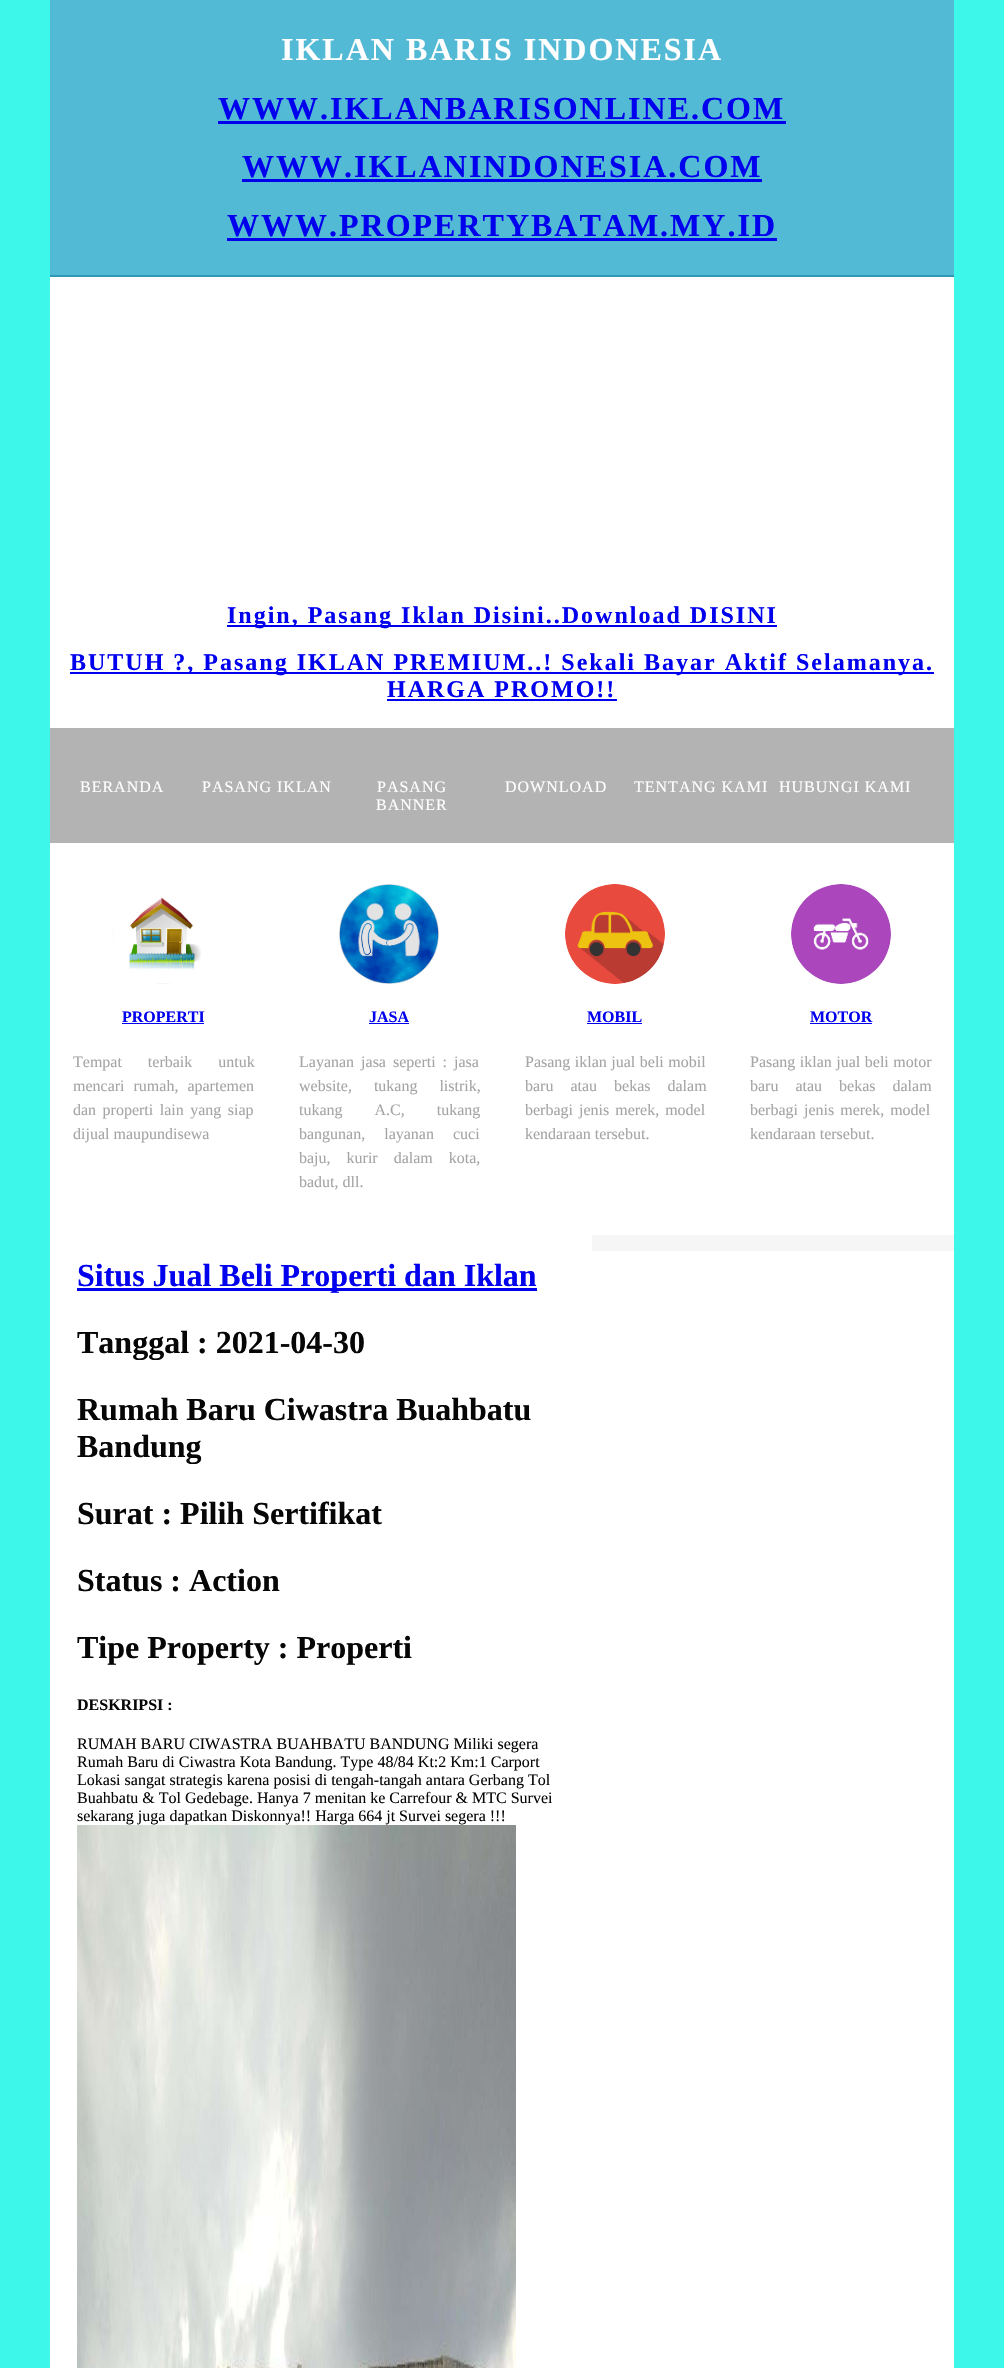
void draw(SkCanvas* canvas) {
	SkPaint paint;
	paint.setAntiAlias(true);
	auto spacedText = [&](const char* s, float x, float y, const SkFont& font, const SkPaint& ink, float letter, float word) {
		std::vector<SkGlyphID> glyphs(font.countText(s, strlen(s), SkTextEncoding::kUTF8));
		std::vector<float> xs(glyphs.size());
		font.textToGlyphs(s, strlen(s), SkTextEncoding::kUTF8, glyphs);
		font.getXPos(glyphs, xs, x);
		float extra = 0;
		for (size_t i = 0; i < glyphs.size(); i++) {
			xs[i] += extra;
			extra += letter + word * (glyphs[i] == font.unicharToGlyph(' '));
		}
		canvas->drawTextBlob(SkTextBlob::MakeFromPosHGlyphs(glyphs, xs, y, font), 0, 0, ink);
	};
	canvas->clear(0xff3ef7eb);
	paint.setColor(0xffffffff);
	canvas->drawRect(SkRect::MakeXYWH(50, 277, 904, 2091), paint);
	paint.setColor(0xff52bad5);
	canvas->drawRect(SkRect::MakeXYWH(50, 0, 904, 275), paint);
	paint.setColor(0xff2c9ab7);
	canvas->drawRect(SkRect::MakeXYWH(50, 275, 904, 2), paint);
	SkFont f1(fontMgr->matchFamilyStyle("Liberation Serif", SkFontStyle::Bold()), 32);
	f1.setSubpixel(true);
	paint.setColor(0xffffffff);
	spacedText("IKLAN BARIS INDONESIA", 281, 60, f1, paint, 2, 0);
	paint.setColor(0xff0000ee);
	spacedText("WWW.IKLANBARISONLINE.COM", 218, 119, f1, paint, 2, 0);
	canvas->drawRect(SkRect::MakeXYWH(218, 121, 568, 3), paint);
	spacedText("WWW.IKLANINDONESIA.COM", 242, 177, f1, paint, 2, 0);
	canvas->drawRect(SkRect::MakeXYWH(242, 179, 520, 3), paint);
	spacedText("WWW.PROPERTYBATAM.MY.ID", 227, 236, f1, paint, 2, 0);
	canvas->drawRect(SkRect::MakeXYWH(227, 238, 550, 3), paint);
	canvas->drawRect(SkRect::MakeXYWH(227, 625, 550, 2), paint);
	SkFont f2(fontMgr->matchFamilyStyle("Liberation Serif", SkFontStyle::Bold()), 24);
	f2.setSubpixel(true);
	spacedText("Ingin, Pasang Iklan Disini..Download DISINI", 227, 623, f2, paint, 2, 0);
	canvas->drawRect(SkRect::MakeXYWH(70, 672, 864, 2), paint);
	spacedText("BUTUH ?, Pasang IKLAN PREMIUM..! Sekali Bayar Aktif Selamanya.", 70, 670, f2, paint, 2, 0);
	spacedText("HARGA PROMO!!", 387, 697, f2, paint, 2, 0);
	canvas->drawRect(SkRect::MakeXYWH(387, 699, 230, 2), paint);
	paint.setColor(0xffb3b3b3);
	canvas->drawRect(SkRect::MakeXYWH(50, 728, 904, 115), paint);
	SkFont f3(fontMgr->matchFamilyStyle("Liberation Serif", SkFontStyle::Normal()), 16);
	f3.setSubpixel(true);
	paint.setColor(0xffffffff);
	spacedText("BERANDA", 80, 792, f3, paint, 1, 0);
	spacedText("PASANG IKLAN", 202, 792, f3, paint, 1, 0);
	spacedText("PASANG", 377, 792, f3, paint, 1, 0);
	spacedText("BANNER", 376, 810, f3, paint, 1, 0);
	spacedText("DOWNLOAD", 505, 792, f3, paint, 1, 0);
	spacedText("TENTANG KAMI", 634, 792, f3, paint, 1, 0);
	spacedText("HUBUNGI KAMI", 779, 792, f3, paint, 1, 0);
	canvas->drawImageRect(SkImages::DeferredFromEncodedData(SkData::MakeFromFileName("img1.png")), SkRect::MakeXYWH(113, 897, 88, 87), SkSamplingOptions());
	SkFont f4(fontMgr->matchFamilyStyle("Liberation Serif", SkFontStyle::Bold()), 16);
	f4.setSubpixel(true);
	paint.setColor(0xff0000ee);
	canvas->drawString("PROPERTI", 122, 1022, f4, paint);
	canvas->drawRect(SkRect::MakeXYWH(122, 1023, 82, 1), paint);
	paint.setColor(0xffa5a5a5);
	spacedText("Tempat terbaik untuk", 73, 1067, f3, paint, 0, 22);
	spacedText("mencari rumah, apartemen", 73, 1091, f3, paint, 0, 5);
	spacedText("dan properti lain yang siap", 73, 1115, f3, paint, 0, 2.5);
	canvas->drawString("dijual maupundisewa", 73, 1139, f3, paint);
	canvas->drawImageRect(SkImages::DeferredFromEncodedData(SkData::MakeFromFileName("img2.png")), SkRect::MakeXYWH(339, 884, 100, 100), SkSamplingOptions());
	paint.setColor(0xff0000ee);
	canvas->drawString("JASA", 369, 1022, f4, paint);
	canvas->drawRect(SkRect::MakeXYWH(369, 1023, 40, 1), paint);
	paint.setColor(0xffa5a5a5);
	spacedText("Layanan jasa seperti : jasa", 299, 1067, f3, paint, 0, 3);
	spacedText("website, tukang listrik,", 299, 1091, f3, paint, 0, 18);
	spacedText("tukang A.C, tukang", 299, 1115, f3, paint, 0, 28);
	spacedText("bangunan, layanan cuci", 299, 1139, f3, paint, 0, 15);
	spacedText("baju, kurir dalam kota,", 299, 1163, f3, paint, 0, 12);
	canvas->drawString("badut, dll.", 299, 1187, f3, paint);
	canvas->drawImageRect(SkImages::DeferredFromEncodedData(SkData::MakeFromFileName("img3.png")), SkRect::MakeXYWH(565, 884, 100, 100), SkSamplingOptions());
	paint.setColor(0xff0000ee);
	canvas->drawString("MOBIL", 587, 1022, f4, paint);
	canvas->drawRect(SkRect::MakeXYWH(587, 1023, 55, 1), paint);
	paint.setColor(0xffa5a5a5);
	spacedText("Pasang iklan jual beli mobil", 525, 1067, f3, paint, 0, 0.5);
	spacedText("baru atau bekas dalam", 525, 1091, f3, paint, 0, 13);
	spacedText("berbagi jenis merek, model", 525, 1115, f3, paint, 0, 2);
	canvas->drawString("kendaraan tersebut.", 525, 1139, f3, paint);
	canvas->drawImageRect(SkImages::DeferredFromEncodedData(SkData::MakeFromFileName("img4.png")), SkRect::MakeXYWH(791, 884, 100, 100), SkSamplingOptions());
	paint.setColor(0xff0000ee);
	canvas->drawString("MOTOR", 810, 1022, f4, paint);
	canvas->drawRect(SkRect::MakeXYWH(810, 1023, 62, 1), paint);
	paint.setColor(0xffa5a5a5);
	spacedText("Pasang iklan jual beli motor", 750, 1067, f3, paint, 0, 0.5);
	spacedText("baru atau bekas dalam", 750, 1091, f3, paint, 0, 13);
	spacedText("berbagi jenis merek, model", 750, 1115, f3, paint, 0, 2);
	canvas->drawString("kendaraan tersebut.", 750, 1139, f3, paint);
	paint.setColor(0xfff6f6f6);
	canvas->drawRect(SkRect::MakeXYWH(592, 1235, 362, 16), paint);
	paint.setColor(0xff0000ee);
	canvas->drawRect(SkRect::MakeXYWH(77, 1288, 460, 3), paint);
	canvas->drawString("Situs Jual Beli Properti dan Iklan", 77, 1286, f1, paint);
	paint.setColor(0xff060606);
	canvas->drawString("Tanggal : 2021-04-30", 77, 1353, f1, paint);
	canvas->drawString("Rumah Baru Ciwastra Buahbatu", 77, 1420, f1, paint);
	canvas->drawString("Bandung", 77, 1457, f1, paint);
	canvas->drawString("Surat : Pilih Sertifikat", 77, 1524, f1, paint);
	canvas->drawString("Status : Action", 77, 1591, f1, paint);
	canvas->drawString("Tipe Property : Properti", 77, 1658, f1, paint);
	canvas->drawString("DESKRIPSI :", 77, 1710, f4, paint);
	canvas->drawString("RUMAH BARU CIWASTRA BUAHBATU BANDUNG Miliki segera", 77, 1749, f3, paint);
	canvas->drawString("Rumah Baru di Ciwastra Kota Bandung. Type 48/84 Kt:2 Km:1 Carport", 77, 1767, f3, paint);
	canvas->drawString("Lokasi sangat strategis karena posisi di tengah-tangah antara Gerbang Tol", 77, 1785, f3, paint);
	canvas->drawString("Buahbatu & Tol Gedebage. Hanya 7 menitan ke Carrefour & MTC Survei", 77, 1803, f3, paint);
	canvas->drawString("sekarang juga dapatkan Diskonnya!! Harga 664 jt Survei segera !!!", 77, 1821, f3, paint);
	canvas->drawImageRect(SkImages::DeferredFromEncodedData(SkData::MakeFromFileName("img5.png")), SkRect::MakeXYWH(77, 1825, 439, 543), SkSamplingOptions());
}
